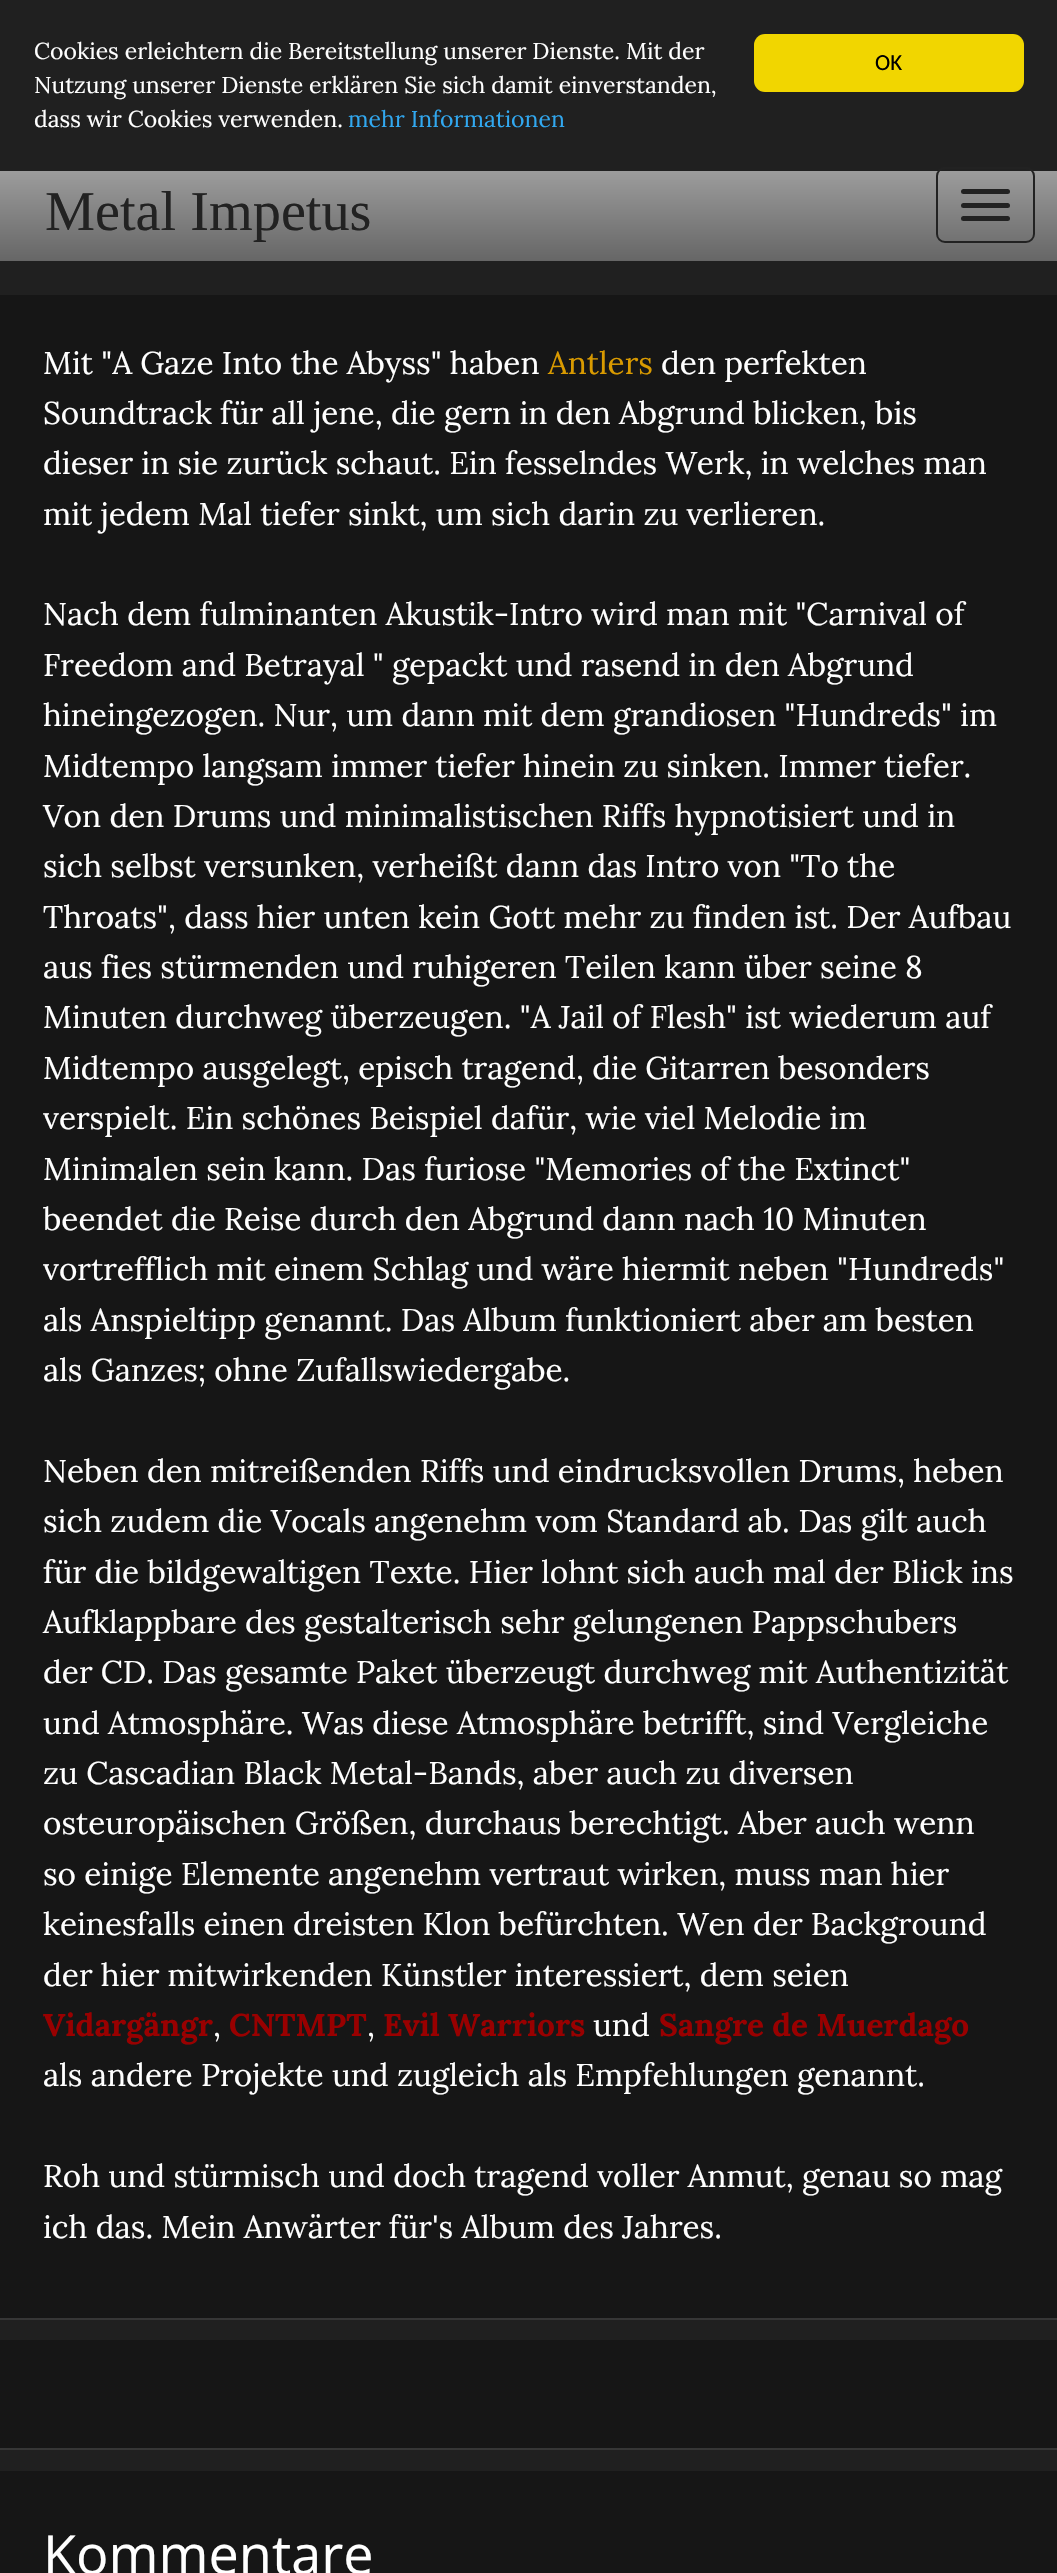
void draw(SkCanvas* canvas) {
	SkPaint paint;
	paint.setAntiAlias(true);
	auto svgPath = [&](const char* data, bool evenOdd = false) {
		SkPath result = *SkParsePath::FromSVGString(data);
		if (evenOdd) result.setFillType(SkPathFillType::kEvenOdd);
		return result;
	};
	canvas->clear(0xff202020);
	SkFont f1(fontMgr->matchFamilyStyle("Lora", SkFontStyle::Normal()), 22.95);
	f1.setSubpixel(true);
	paint.setColor(0xffffffff);
	canvas->drawString("Cookies erleichtern die Bereitstellung unserer Dienste. Mit der", 34, 59, f1, paint);
	canvas->drawString("Nutzung unserer Dienste erklären Sie sich damit einverstanden,", 34, 93, f1, paint);
	canvas->drawString("dass wir Cookies verwenden.", 34, 127, f1, paint);
	paint.setColor(0xff31a8f0);
	canvas->drawString("mehr Informationen", 348, 127, f1, paint);
	paint.setColor(0xfff1d600);
	canvas->drawRoundRect(SkRect::MakeXYWH(754, 34, 270, 58), 11, 11, paint);
	SkFont f2(fontMgr->matchFamilyStyle("Carlito", SkFontStyle::Normal()), 22.95);
	f2.setSubpixel(true);
	paint.setColor(0xff000000);
	canvas->drawString("OK", 875, 70, f2, paint);
	{
		const SkColor colors[] = {0xffaaaaaa, 0xff666666};
		const float stops[] = {0, 1};
		const SkPoint ends[] = {{529, 148}, {529, 261}};
		paint.setShader(SkGradientShader::MakeLinear(ends, colors, stops, 2, SkTileMode::kClamp));
		paint.setAlpha(255);
	}
	canvas->drawRect(SkRect::MakeXYWH(0, 171, 1057, 90), paint);
	SkFont f3(fontMgr->matchFamilyStyle("Liberation Serif", SkFontStyle::Normal()), 56.25);
	f3.setSubpixel(true);
	paint.setShader(nullptr);
	paint.setColor(0xff222222);
	canvas->drawString("Metal Impetus", 45, 230, f3, paint);
	paint.setStroke(true);
	paint.setStrokeWidth(2);
	canvas->drawRoundRect(SkRect::MakeXYWH(937, 168, 97, 74), 8, 8, paint);
	paint.setStroke(false);
	canvas->drawRoundRect(SkRect::MakeXYWH(961, 189, 49, 5), 2.5, 2.5, paint);
	canvas->drawRoundRect(SkRect::MakeXYWH(961, 203, 49, 5), 2.5, 2.5, paint);
	canvas->drawRoundRect(SkRect::MakeXYWH(961, 216, 49, 5), 2.5, 2.5, paint);
	paint.setColor(0xff363636);
	canvas->drawPath(svgPath("M0 2318V2320H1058V297V2318Z"), paint);
	paint.setColor(0xff161616);
	canvas->drawRect(SkRect::MakeXYWH(0, 295, 1057, 2023), paint);
	SkFont f4(fontMgr->matchFamilyStyle("Lora", SkFontStyle::Normal()), 31.5);
	f4.setSubpixel(true);
	paint.setColor(0xffffffff);
	canvas->drawString("Mit \"A Gaze Into the Abyss\" haben", 43, 374, f4, paint);
	paint.setColor(0xffd99a00);
	canvas->drawString("Antlers", 548, 374, f4, paint);
	paint.setColor(0xffffffff);
	canvas->drawString("den perfekten", 661, 374, f4, paint);
	canvas->drawString("Soundtrack für all jene, die gern in den Abgrund blicken, bis", 43, 424, f4, paint);
	canvas->drawString("dieser in sie zurück schaut. Ein fesselndes Werk, in welches man", 43, 474, f4, paint);
	canvas->drawString("mit jedem Mal tiefer sinkt, um sich darin zu verlieren.", 43, 525, f4, paint);
	canvas->drawString("Nach dem fulminanten Akustik-Intro wird man mit \"Carnival of", 43, 625, f4, paint);
	canvas->drawString("Freedom and Betrayal \" gepackt und rasend in den Abgrund", 43, 676, f4, paint);
	canvas->drawString("hineingezogen. Nur, um dann mit dem grandiosen \"Hundreds\" im", 43, 726, f4, paint);
	canvas->drawString("Midtempo langsam immer tiefer hinein zu sinken. Immer tiefer.", 43, 777, f4, paint);
	canvas->drawString("Von den Drums und minimalistischen Riffs hypnotisiert und in", 43, 827, f4, paint);
	canvas->drawString("sich selbst versunken, verheißt dann das Intro von \"To the", 43, 877, f4, paint);
	canvas->drawString("Throats\", dass hier unten kein Gott mehr zu finden ist. Der Aufbau", 43, 928, f4, paint);
	canvas->drawString("aus fies stürmenden und ruhigeren Teilen kann über seine 8", 43, 978, f4, paint);
	canvas->drawString("Minuten durchweg überzeugen. \"A Jail of Flesh\" ist wiederum auf", 43, 1028, f4, paint);
	canvas->drawString("Midtempo ausgelegt, episch tragend, die Gitarren besonders", 43, 1079, f4, paint);
	canvas->drawString("verspielt. Ein schönes Beispiel dafür, wie viel Melodie im", 43, 1129, f4, paint);
	canvas->drawString("Minimalen sein kann. Das furiose \"Memories of the Extinct\"", 43, 1180, f4, paint);
	canvas->drawString("beendet die Reise durch den Abgrund dann nach 10 Minuten", 43, 1230, f4, paint);
	canvas->drawString("vortrefflich mit einem Schlag und wäre hiermit neben \"Hundreds\"", 43, 1280, f4, paint);
	canvas->drawString("als Anspieltipp genannt. Das Album funktioniert aber am besten", 43, 1331, f4, paint);
	canvas->drawString("als Ganzes; ohne Zufallswiedergabe.", 43, 1381, f4, paint);
	canvas->drawString("Neben den mitreißenden Riffs und eindrucksvollen Drums, heben", 43, 1482, f4, paint);
	canvas->drawString("sich zudem die Vocals angenehm vom Standard ab. Das gilt auch", 43, 1532, f4, paint);
	canvas->drawString("für die bildgewaltigen Texte. Hier lohnt sich auch mal der Blick ins", 43, 1583, f4, paint);
	canvas->drawString("Aufklappbare des gestalterisch sehr gelungenen Pappschubers", 43, 1633, f4, paint);
	canvas->drawString("der CD. Das gesamte Paket überzeugt durchweg mit Authentizität", 43, 1683, f4, paint);
	canvas->drawString("und Atmosphäre. Was diese Atmosphäre betrifft, sind Vergleiche", 43, 1734, f4, paint);
	canvas->drawString("zu Cascadian Black Metal-Bands, aber auch zu diversen", 43, 1784, f4, paint);
	canvas->drawString("osteuropäischen Größen, durchaus berechtigt. Aber auch wenn", 43, 1834, f4, paint);
	canvas->drawString("so einige Elemente angenehm vertraut wirken, muss man hier", 43, 1885, f4, paint);
	canvas->drawString("keinesfalls einen dreisten Klon befürchten. Wen der Background", 43, 1935, f4, paint);
	canvas->drawString("der hier mitwirkenden Künstler interessiert, dem seien", 43, 1986, f4, paint);
	SkFont f5(fontMgr->matchFamilyStyle("Lora", SkFontStyle::Bold()), 31.5);
	f5.setSubpixel(true);
	paint.setColor(0xff990000);
	canvas->drawString("Vidargängr", 43, 2036, f5, paint);
	paint.setColor(0xffffffff);
	canvas->drawString(",", 213, 2036, f4, paint);
	paint.setColor(0xff990000);
	canvas->drawString("CNTMPT", 229, 2036, f5, paint);
	paint.setColor(0xffffffff);
	canvas->drawString(",", 367, 2036, f4, paint);
	paint.setColor(0xff990000);
	canvas->drawString("Evil Warriors", 383, 2036, f5, paint);
	paint.setColor(0xffffffff);
	canvas->drawString("und", 593, 2036, f4, paint);
	paint.setColor(0xff990000);
	canvas->drawString("Sangre de Muerdago", 659, 2036, f5, paint);
	paint.setColor(0xffffffff);
	canvas->drawString("als andere Projekte und zugleich als Empfehlungen genannt.", 43, 2086, f4, paint);
	canvas->drawString("Roh und stürmisch und doch tragend voller Anmut, genau so mag", 43, 2187, f4, paint);
	canvas->drawString("ich das. Mein Anwärter für's Album des Jahres.", 43, 2238, f4, paint);
	paint.setColor(0xff363636);
	canvas->drawPath(svgPath("M0 2448V2450H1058V2342V2448Z"), paint);
	paint.setColor(0xff161616);
	canvas->drawRect(SkRect::MakeXYWH(0, 2340, 1057, 108), paint);
	canvas->drawRect(SkRect::MakeXYWH(0, 2471, 1057, 102), paint);
	SkFont f6(fontMgr->matchFamilyStyle("Open Sans", SkFontStyle::Normal()), 54);
	f6.setSubpixel(true);
	paint.setColor(0xffffffff);
	canvas->drawString("Kommentare", 43, 2574, f6, paint);
}
